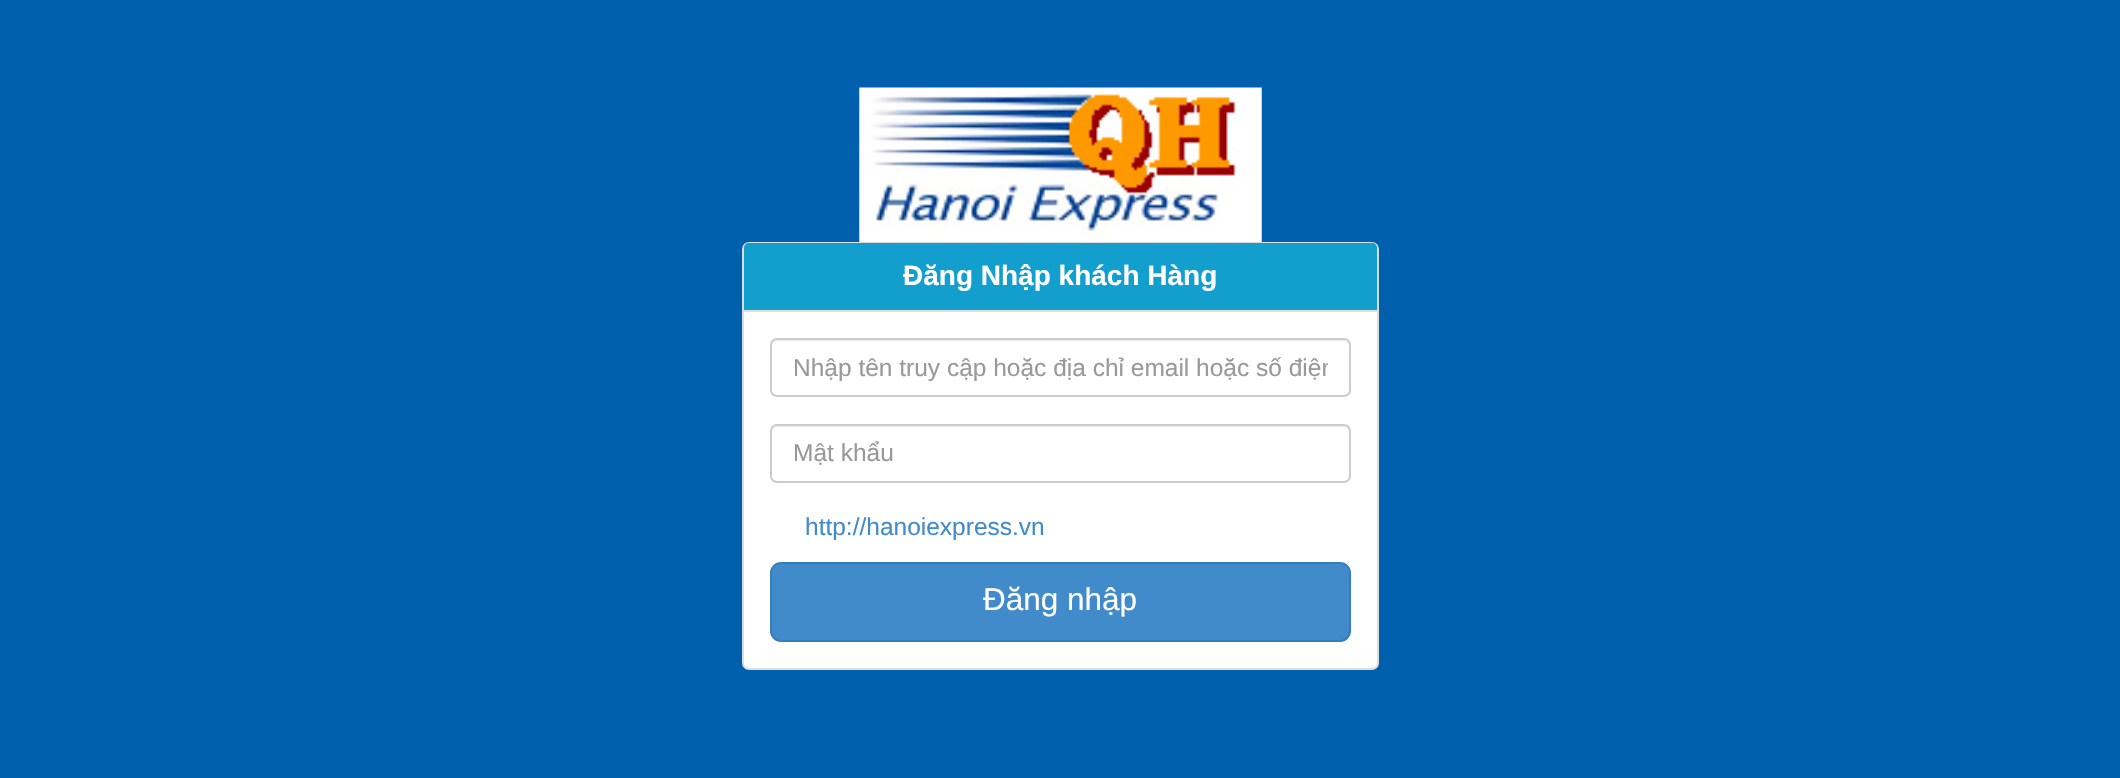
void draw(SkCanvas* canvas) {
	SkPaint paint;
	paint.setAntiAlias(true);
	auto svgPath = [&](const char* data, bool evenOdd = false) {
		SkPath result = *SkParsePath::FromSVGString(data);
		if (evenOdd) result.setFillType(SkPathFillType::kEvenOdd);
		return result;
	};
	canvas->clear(0xff0060ad);
	canvas->drawImageRect(SkImages::DeferredFromEncodedData(SkData::MakeFromFileName("img1.png")), SkRect::MakeXYWH(859, 87, 403, 155), SkSamplingOptions());
	paint.setColor(0xffffffff);
	canvas->drawRoundRect(SkRect::MakeXYWH(743, 243, 635, 426), 6, 6, paint);
	paint.setStroke(true);
	paint.setStrokeWidth(2);
	paint.setColor(0xffdddddd);
	canvas->drawRoundRect(SkRect::MakeXYWH(743, 243, 635, 426), 6, 6, paint);
	paint.setStroke(false);
	paint.setColor(0xff129fce);
	canvas->drawPath(svgPath("M749 243H1372C1375 243 1377 245 1377 248V312H744V248C744 245 746 243 749 243Z"), paint);
	paint.setColor(0xffdddddd);
	canvas->drawRect(SkRect::MakeXYWH(744, 310, 633, 2), paint);
	SkFont f1(fontMgr->matchFamilyStyle("Liberation Sans", SkFontStyle::Bold()), 28);
	f1.setSubpixel(true);
	paint.setColor(0xffffffff);
	canvas->drawString("Đăng Nhập khách Hàng", 903, 285, f1, paint);
	paint.setColor(0xffececec);
	canvas->drawPath(svgPath("M777 341H1344C1347 341 1349 344 1349 346C1349 343 1347 340 1344 340H777C774 340 772 343 772 346C772 344 774 341 777 341Z"), paint);
	paint.setStroke(true);
	paint.setColor(0xffcccccc);
	canvas->drawRoundRect(SkRect::MakeXYWH(771, 339, 579, 57), 6, 6, paint);
	canvas->save();
	canvas->clipRect(SkRect::MakeXYWH(793, 354, 535, 28));
	SkFont f2(fontMgr->matchFamilyStyle("Liberation Sans", SkFontStyle::Normal()), 24.5);
	f2.setSubpixel(true);
	paint.setStroke(false);
	paint.setColor(0xff999999);
	canvas->drawString("Nhập tên truy cập hoặc địa chỉ email hoặc số điện", 793, 376, f2, paint);
	canvas->restore();
	paint.setColor(0xffececec);
	canvas->drawPath(svgPath("M777 427H1344C1347 427 1349 429 1349 432V430C1349 427 1347 425 1344 425H777C774 425 772 427 772 430V432C772 429 774 427 777 427Z"), paint);
	paint.setStroke(true);
	paint.setColor(0xffcccccc);
	canvas->drawRoundRect(SkRect::MakeXYWH(771, 425, 579, 57), 6, 6, paint);
	paint.setStroke(false);
	paint.setColor(0xff999999);
	canvas->drawString("Mật khẩu", 793, 461, f2, paint);
	paint.setColor(0xff428bca);
	canvas->drawString("http://hanoiexpress.vn", 805, 535, f2, paint);
	canvas->drawRoundRect(SkRect::MakeXYWH(771, 563, 579, 78), 10, 10, paint);
	paint.setStroke(true);
	paint.setColor(0xff357ebd);
	canvas->drawRoundRect(SkRect::MakeXYWH(771, 563, 579, 78), 10, 10, paint);
	SkFont f3(fontMgr->matchFamilyStyle("Liberation Sans", SkFontStyle::Normal()), 31.5);
	f3.setSubpixel(true);
	paint.setStroke(false);
	paint.setColor(0xffffffff);
	canvas->drawString("Đăng nhập", 983, 610, f3, paint);
}
